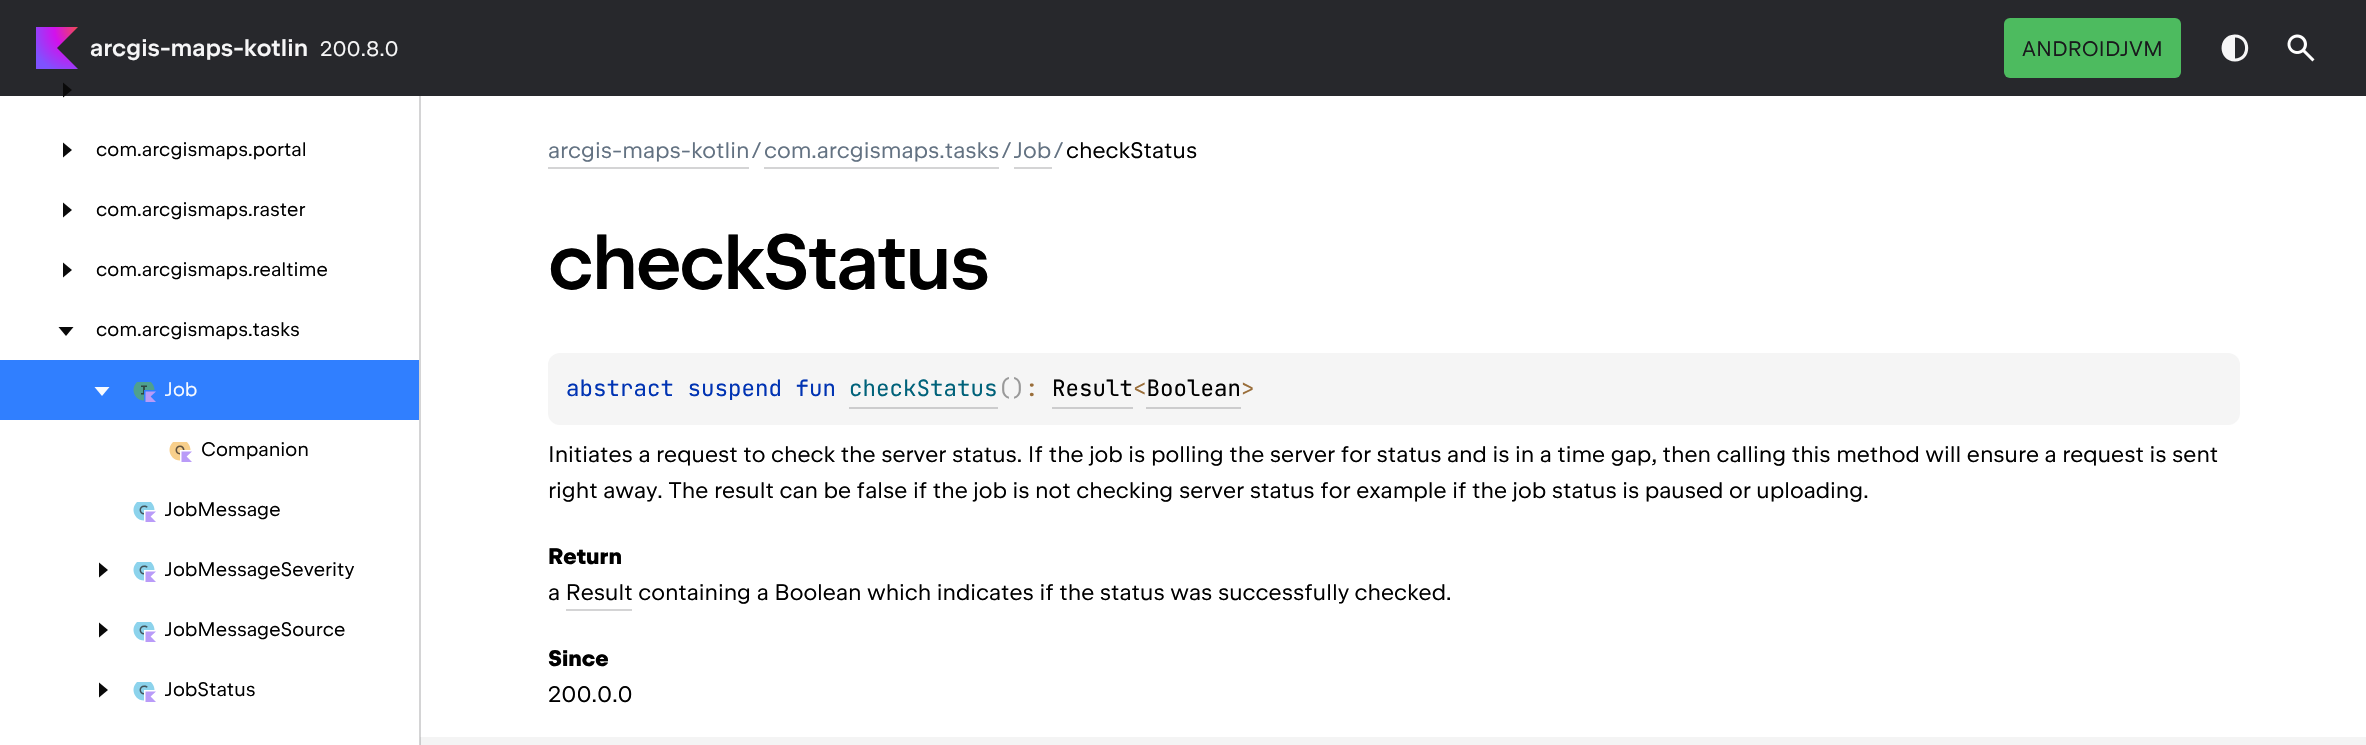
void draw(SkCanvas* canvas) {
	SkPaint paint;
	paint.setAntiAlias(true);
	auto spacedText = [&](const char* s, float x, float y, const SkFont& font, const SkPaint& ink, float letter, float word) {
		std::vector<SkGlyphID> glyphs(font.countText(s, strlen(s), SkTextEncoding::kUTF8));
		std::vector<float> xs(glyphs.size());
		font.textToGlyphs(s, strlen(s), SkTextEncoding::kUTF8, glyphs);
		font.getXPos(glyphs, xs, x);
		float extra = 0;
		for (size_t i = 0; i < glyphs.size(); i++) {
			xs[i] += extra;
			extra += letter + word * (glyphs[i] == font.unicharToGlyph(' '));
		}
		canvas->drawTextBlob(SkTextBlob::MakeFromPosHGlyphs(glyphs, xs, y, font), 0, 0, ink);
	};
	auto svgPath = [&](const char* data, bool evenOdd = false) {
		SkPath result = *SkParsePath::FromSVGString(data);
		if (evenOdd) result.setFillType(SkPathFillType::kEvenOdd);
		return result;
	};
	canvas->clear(0xffffffff);
	paint.setColor(0xffd4d4d5);
	canvas->drawRect(SkRect::MakeXYWH(419, 96, 2, 649), paint);
	paint.setColor(0xff27282c);
	canvas->drawRect(SkRect::MakeXYWH(0, 0, 2366, 96), paint);
	{
		const SkColor colors[] = {0xffef4857, 0xffd211ec, 0xff7f52ff};
		const float stops[] = {0, 0.47, 1};
		paint.setShader(SkGradientShader::MakeRadial({77, 29}, 48, colors, stops, 3, SkTileMode::kClamp));
		paint.setAlpha(255);
	}
	canvas->drawPath(svgPath("M78 69H36V27H78L57 48Z"), paint);
	SkFont f1(fontMgr->matchFamilyStyle("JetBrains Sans", SkFontStyle(600, SkFontStyle::kNormal_Width, SkFontStyle::kUpright_Slant)), 24);
	f1.setSubpixel(true);
	paint.setShader(nullptr);
	paint.setColor(0xfff6f6f7);
	canvas->drawString("arcgis-maps-kotlin", 90, 56, f1, paint);
	SkFont f2(fontMgr->matchFamilyStyle("JetBrains Sans", SkFontStyle::Normal()), 21);
	f2.setSubpixel(true);
	canvas->drawString("200.8.0", 320, 56, f2, paint);
	paint.setColor(0xff4dbb5f);
	canvas->drawRoundRect(SkRect::MakeXYWH(2004, 18, 177, 60), 6, 6, paint);
	paint.setColor(0xff19191c);
	canvas->drawString("ANDROIDJVM", 2022, 56, f2, paint);
	paint.setColor(0xfff6f6f7);
	canvas->drawPath(svgPath("M2235 61.5C2253 61.5 2252.5 34 2234.5 34.5C2217 35 2217.5 61.5 2235 61.5ZM2235 37.5C2248.5 37.5 2248.5 58.5 2235 58.5Z"), paint);
	canvas->drawImageRect(SkImages::DeferredFromEncodedData(SkData::MakeFromFileName("img1.png")), SkRect::MakeXYWH(2287, 34, 28, 28), SkSamplingOptions());
	paint.setColor(0xff0a0a0a);
	canvas->drawPath(svgPath("M72 90L63 97.5V82.5Z"), paint);
	canvas->drawPath(svgPath("M72 150L63 157.5V142.5Z"), paint);
	SkFont f3(fontMgr->matchFamilyStyle("JetBrains Sans", SkFontStyle::Normal()), 19.5);
	f3.setSubpixel(true);
	paint.setColor(0xff000000);
	canvas->drawString("com.arcgismaps.portal", 96, 156, f3, paint);
	paint.setColor(0xff0a0a0a);
	canvas->drawPath(svgPath("M72 210L63 217.5V202.5Z"), paint);
	paint.setColor(0xff000000);
	canvas->drawString("com.arcgismaps.raster", 96, 216, f3, paint);
	paint.setColor(0xff0a0a0a);
	canvas->drawPath(svgPath("M72 270L63 277.5V262.5Z"), paint);
	paint.setColor(0xff000000);
	canvas->drawString("com.arcgismaps.realtime", 96, 276, f3, paint);
	paint.setColor(0xff0a0a0a);
	canvas->drawPath(svgPath("M66 336L58.5 327H73.5Z"), paint);
	paint.setColor(0xff000000);
	canvas->drawString("com.arcgismaps.tasks", 96, 336, f3, paint);
	paint.setColor(0xff307fff);
	canvas->drawRect(SkRect::MakeXYWH(0, 360, 419, 60), paint);
	paint.setColor(0xfff7faff);
	canvas->drawPath(svgPath("M102 396L94.5 387H109.5Z"), paint);
	canvas->drawImageRect(SkImages::DeferredFromEncodedData(SkData::MakeFromFileName("img2.png")), SkRect::MakeXYWH(133, 382, 23, 20), SkSamplingOptions());
	canvas->drawString("Job", 165, 396, f3, paint);
	canvas->drawImageRect(SkImages::DeferredFromEncodedData(SkData::MakeFromFileName("img3.png")), SkRect::MakeXYWH(169, 442, 23, 20), SkSamplingOptions());
	paint.setColor(0xff000000);
	canvas->drawString("Companion", 201, 456, f3, paint);
	canvas->drawImageRect(SkImages::DeferredFromEncodedData(SkData::MakeFromFileName("img4.png")), SkRect::MakeXYWH(133, 502, 23, 20), SkSamplingOptions());
	canvas->drawString("JobMessage", 165, 516, f3, paint);
	paint.setColor(0xff0a0a0a);
	canvas->drawPath(svgPath("M108 570L99 577.5V562.5Z"), paint);
	canvas->drawImageRect(SkImages::DeferredFromEncodedData(SkData::MakeFromFileName("img4.png")), SkRect::MakeXYWH(133, 562, 23, 20), SkSamplingOptions());
	paint.setColor(0xff000000);
	canvas->drawString("JobMessageSeverity", 165, 576, f3, paint);
	paint.setColor(0xff0a0a0a);
	canvas->drawPath(svgPath("M108 630L99 637.5V622.5Z"), paint);
	canvas->drawImageRect(SkImages::DeferredFromEncodedData(SkData::MakeFromFileName("img4.png")), SkRect::MakeXYWH(133, 622, 23, 20), SkSamplingOptions());
	paint.setColor(0xff000000);
	canvas->drawString("JobMessageSource", 165, 636, f3, paint);
	paint.setColor(0xff0a0a0a);
	canvas->drawPath(svgPath("M108 690L99 697.5V682.5Z"), paint);
	canvas->drawImageRect(SkImages::DeferredFromEncodedData(SkData::MakeFromFileName("img4.png")), SkRect::MakeXYWH(133, 682, 23, 20), SkSamplingOptions());
	paint.setColor(0xff000000);
	canvas->drawString("JobStatus", 165, 696, f3, paint);
	SkFont f4(fontMgr->matchFamilyStyle("JetBrains Sans", SkFontStyle::Normal()), 22.5);
	f4.setSubpixel(true);
	paint.setColor(0xff637282);
	canvas->drawString("arcgis-maps-kotlin", 548, 158, f4, paint);
	paint.setColor(0xffd4d4d5);
	canvas->drawRect(SkRect::MakeXYWH(548, 167, 201, 2), paint);
	paint.setColor(0xff637282);
	canvas->drawString("/", 752, 158, f4, paint);
	canvas->drawString("com.arcgismaps.tasks", 764, 158, f4, paint);
	paint.setColor(0xffd4d4d5);
	canvas->drawRect(SkRect::MakeXYWH(764, 167, 235, 2), paint);
	paint.setColor(0xff637282);
	canvas->drawString("/", 1002, 158, f4, paint);
	canvas->drawString("Job", 1014, 158, f4, paint);
	paint.setColor(0xffd4d4d5);
	canvas->drawRect(SkRect::MakeXYWH(1014, 167, 38, 2), paint);
	paint.setColor(0xff637282);
	canvas->drawString("/", 1054, 158, f4, paint);
	paint.setColor(0xff000000);
	canvas->drawString("checkStatus", 1066, 158, f4, paint);
	SkFont f5(fontMgr->matchFamilyStyle("JetBrains Sans", SkFontStyle(500, SkFontStyle::kNormal_Width, SkFontStyle::kUpright_Slant)), 78);
	f5.setSubpixel(true);
	spacedText("checkStatus", 548, 289, f5, paint, -2.25, 0);
	paint.setColor(0xfff5f5f5);
	canvas->drawRoundRect(SkRect::MakeXYWH(548, 353, 1692, 72), 12, 12, paint);
	SkFont f6(fontMgr->matchFamilyStyle("JetBrains Mono", SkFontStyle::Normal()), 22.5);
	f6.setSubpixel(true);
	paint.setColor(0xff0033b3);
	canvas->drawString("abstract suspend fun", 566, 396, f6, paint);
	paint.setColor(0xff00627a);
	canvas->drawString("checkStatus", 849, 396, f6, paint);
	paint.setColor(0xffcccccd);
	canvas->drawRect(SkRect::MakeXYWH(849, 407, 149, 2), paint);
	paint.setColor(0xff999999);
	canvas->drawString("()", 998, 396, f6, paint);
	paint.setColor(0xff000000);
	canvas->drawString("Result Boolean", 1052, 396, f6, paint);
	paint.setColor(0xffcccccd);
	canvas->drawRect(SkRect::MakeXYWH(1052, 407, 81, 2), paint);
	paint.setColor(0xff9a6e3a);
	canvas->drawString(":", 1025, 396, f6, paint);
	canvas->drawString("<", 1133, 396, f6, paint);
	canvas->drawString(">", 1241, 396, f6, paint);
	paint.setColor(0xffcccccd);
	canvas->drawRect(SkRect::MakeXYWH(1146, 407, 95, 2), paint);
	paint.setColor(0xff000000);
	canvas->drawString("Initiates a request to check the server status. If the job is polling the server for status and is in a time gap, then calling this method will ensure a request is sent", 548, 462, f4, paint);
	canvas->drawString("right away. The result can be false if the job is not checking server status for example if the job status is paused or uploading.", 548, 498, f4, paint);
	SkFont f7(fontMgr->matchFamilyStyle("JetBrains Sans", SkFontStyle::Bold()), 22.5);
	f7.setSubpixel(true);
	canvas->drawString("Return", 548, 564, f7, paint);
	canvas->drawString("a Result containing a Boolean which indicates if the status was successfully checked.", 548, 600, f4, paint);
	paint.setColor(0xffd4d4d5);
	canvas->drawRect(SkRect::MakeXYWH(566, 609, 66, 2), paint);
	paint.setColor(0xff000000);
	canvas->drawString("Since", 548, 666, f7, paint);
	canvas->drawString("200.0.0", 548, 702, f4, paint);
	paint.setColor(0xfff4f4f4);
	canvas->drawRect(SkRect::MakeXYWH(420, 737, 1946, 8), paint);
	paint.setColor(0xffcbcbcc);
	canvas->drawRect(SkRect::MakeXYWH(420, 737, 1, 8), paint);
}
